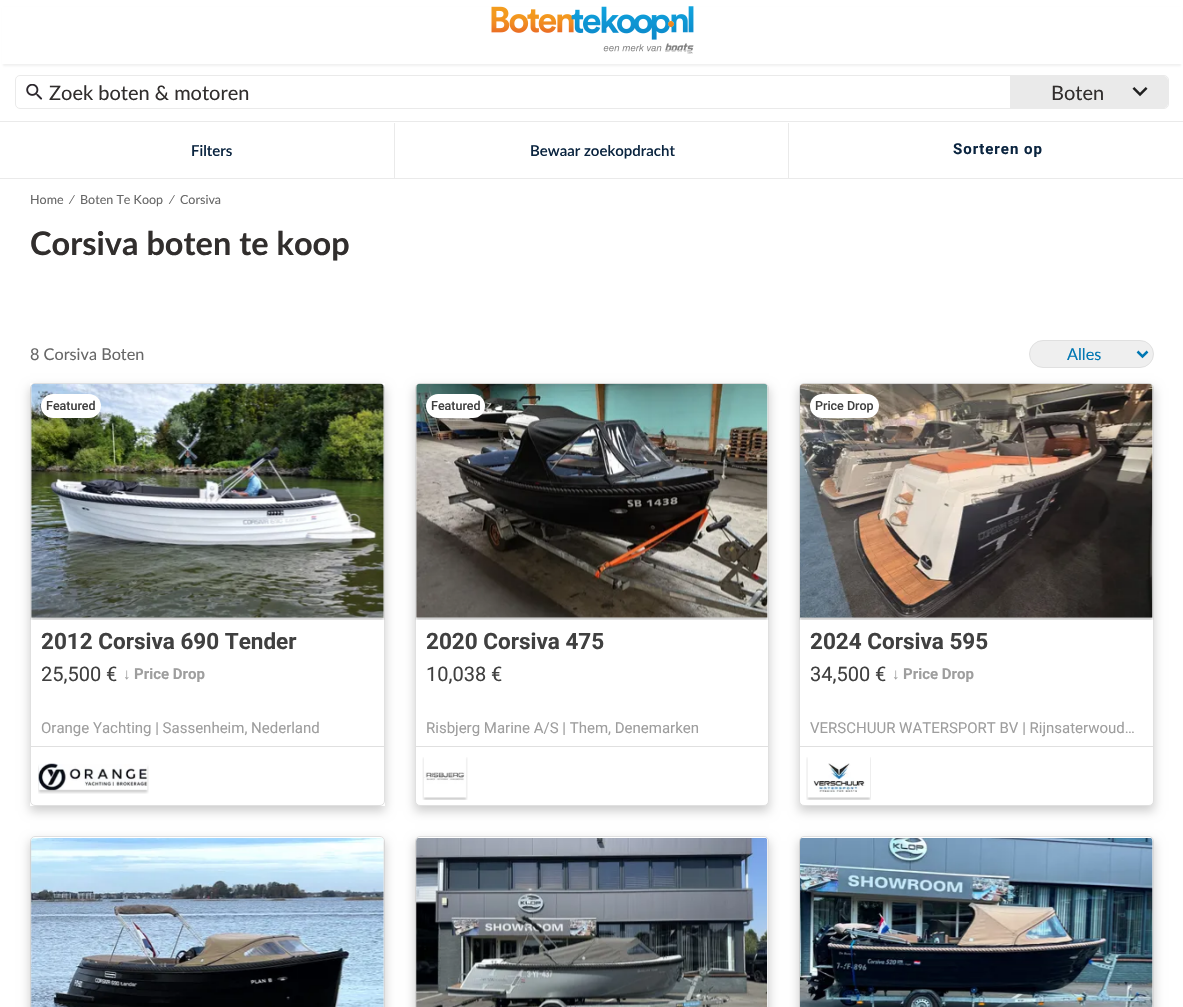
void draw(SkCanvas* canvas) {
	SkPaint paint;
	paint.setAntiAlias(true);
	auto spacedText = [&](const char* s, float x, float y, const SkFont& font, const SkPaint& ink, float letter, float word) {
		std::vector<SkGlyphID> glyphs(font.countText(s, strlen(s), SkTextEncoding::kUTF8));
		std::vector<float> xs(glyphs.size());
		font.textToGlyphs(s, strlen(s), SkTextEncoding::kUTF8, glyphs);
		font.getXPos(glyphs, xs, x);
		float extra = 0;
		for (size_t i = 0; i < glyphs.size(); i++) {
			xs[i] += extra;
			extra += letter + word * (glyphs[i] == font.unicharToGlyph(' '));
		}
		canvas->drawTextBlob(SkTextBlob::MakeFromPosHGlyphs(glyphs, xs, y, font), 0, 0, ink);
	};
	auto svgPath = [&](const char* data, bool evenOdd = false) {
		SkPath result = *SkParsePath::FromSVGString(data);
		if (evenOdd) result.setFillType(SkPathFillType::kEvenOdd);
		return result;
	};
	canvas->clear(0xffffffff);
	paint.setColor(0x1a676767);
	paint.setMaskFilter(SkMaskFilter::MakeBlur(kNormal_SkBlurStyle, 1));
	canvas->drawRect(SkRect::MakeXYWH(3, 8, 1178, 58), paint);
	paint.setMaskFilter(nullptr);
	paint.setColor(0xffffffff);
	canvas->drawRect(SkRect::MakeXYWH(2, 7, 1180, 57), paint);
	canvas->drawImageRect(SkImages::DeferredFromEncodedData(SkData::MakeFromFileName("img1.png")), SkRect::MakeXYWH(491, 6, 203, 48), SkSamplingOptions());
	paint.setStroke(true);
	paint.setStrokeWidth(1);
	paint.setColor(0xffeaeaea);
	canvas->drawRoundRect(SkRect::MakeXYWH(15.5, 75.5, 1153, 33), 4.5, 4.5, paint);
	canvas->drawImageRect(SkImages::DeferredFromEncodedData(SkData::MakeFromFileName("img2.png")), SkRect::MakeXYWH(26, 84, 17, 16), SkSamplingOptions());
	SkFont f1(fontMgr->matchFamilyStyle("Lato", SkFontStyle::Normal()), 20);
	f1.setSubpixel(true);
	paint.setStroke(false);
	paint.setColor(0xff312e2d);
	canvas->drawString("Zoek boten & motoren", 49, 100, f1, paint);
	paint.setColor(0xffeaeaea);
	canvas->drawPath(svgPath("M1010 76H1163C1166 76 1168 78 1168 81V103C1168 106 1166 108 1163 108H1010Z"), paint);
	paint.setColor(0xff312e2d);
	canvas->drawString("Boten", 1051, 100, f1, paint);
	canvas->drawImageRect(SkImages::DeferredFromEncodedData(SkData::MakeFromFileName("img3.png")), SkRect::MakeXYWH(1132, 87, 16, 10), SkSamplingOptions());
	paint.setColor(0xffeaeaea);
	canvas->drawRect(SkRect::MakeXYWH(0, 121, 1183, 1), paint);
	canvas->drawRect(SkRect::MakeXYWH(0, 178, 1183, 1), paint);
	canvas->drawRect(SkRect::MakeXYWH(394, 123, 1, 55), paint);
	SkFont f2(fontMgr->matchFamilyStyle("Lato", SkFontStyle(600, SkFontStyle::kNormal_Width, SkFontStyle::kUpright_Slant)), 15);
	f2.setSubpixel(true);
	paint.setColor(0xff0a243f);
	canvas->drawString("Filters", 191, 156, f2, paint);
	paint.setColor(0xffeaeaea);
	canvas->drawRect(SkRect::MakeXYWH(788, 123, 1, 55), paint);
	paint.setColor(0xff0a243f);
	canvas->drawString("Bewaar zoekopdracht", 530, 156, f2, paint);
	SkFont f3(fontMgr->matchFamilyStyle("Roboto", SkFontStyle::Bold()), 15);
	f3.setSubpixel(true);
	spacedText("Sorteren op", 953, 154, f3, paint, 1, 0);
	SkFont f4(fontMgr->matchFamilyStyle("Lato", SkFontStyle::Normal()), 12.5);
	f4.setSubpixel(true);
	paint.setColor(0xff676767);
	canvas->drawString("Home", 30, 204, f4, paint);
	canvas->drawString("⁄", 71, 204, f4, paint);
	canvas->drawString("Boten Te Koop", 80, 204, f4, paint);
	canvas->drawString("⁄", 171, 204, f4, paint);
	canvas->drawString("Corsiva", 180, 204, f4, paint);
	SkFont f5(fontMgr->matchFamilyStyle("Lato", SkFontStyle::Bold()), 32.5);
	f5.setSubpixel(true);
	paint.setColor(0xff312e2d);
	canvas->drawString("Corsiva boten te koop", 30, 255, f5, paint);
	SkFont f6(fontMgr->matchFamilyStyle("Lato", SkFontStyle::Normal()), 16.25);
	f6.setSubpixel(true);
	paint.setColor(0xff676767);
	canvas->drawString("8 Corsiva Boten", 30, 360, f6, paint);
	paint.setColor(0xffefefef);
	canvas->drawRoundRect(SkRect::MakeXYWH(1029.5, 340.5, 124, 27), 13.5, 13.5, paint);
	paint.setStroke(true);
	paint.setColor(0xffe0e0e0);
	canvas->drawRoundRect(SkRect::MakeXYWH(1029.5, 340.5, 124, 27), 13.5, 13.5, paint);
	paint.setStrokeWidth(2.5);
	paint.setColor(0xff0077b3);
	canvas->drawPath(svgPath("M1137.5 351.5L1142.5 356.5L1147.5 351.5"), paint);
	paint.setStroke(false);
	canvas->drawString("Alles", 1067, 360, f6, paint);
	canvas->save();
	canvas->clipPath(svgPath("M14 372H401V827H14ZM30 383H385V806H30Z", true), true);
	paint.setColor(0x33000000);
	paint.setMaskFilter(SkMaskFilter::MakeBlur(kNormal_SkBlurStyle, 5));
	canvas->drawRect(SkRect::MakeXYWH(30, 388, 355, 423), paint);
	paint.setMaskFilter(nullptr);
	canvas->restore();
	paint.setStroke(true);
	paint.setStrokeWidth(1);
	paint.setColor(0xffe0e0e0);
	canvas->drawRoundRect(SkRect::MakeXYWH(30.5, 383.5, 354, 422), 4.5, 4.5, paint);
	canvas->drawImageRect(SkImages::DeferredFromEncodedData(SkData::MakeFromFileName("img4.png")), SkRect::MakeXYWH(30, 383, 355, 237), SkSamplingOptions());
	paint.setStroke(false);
	paint.setColor(0xffffffff);
	canvas->drawRoundRect(SkRect::MakeXYWH(41, 394, 60, 24), 12, 12, paint);
	SkFont f7(fontMgr->matchFamilyStyle("Roboto", SkFontStyle(500, SkFontStyle::kNormal_Width, SkFontStyle::kUpright_Slant)), 12.5);
	f7.setSubpixel(true);
	paint.setColor(0xff404040);
	canvas->drawString("Featured", 46, 410, f7, paint);
	SkFont f8(fontMgr->matchFamilyStyle("Roboto", SkFontStyle::Bold()), 22.5);
	f8.setSubpixel(true);
	canvas->drawString("2012 Corsiva 690 Tender", 41, 649, f8, paint);
	SkFont f9(fontMgr->matchFamilyStyle("Roboto", SkFontStyle::Normal()), 20);
	f9.setSubpixel(true);
	canvas->drawString("25,500 €", 41, 681, f9, paint);
	SkFont f10(fontMgr->matchFamilyStyle("Liberation Sans", SkFontStyle::Bold()), 15);
	f10.setSubpixel(true);
	paint.setColor(0xff9e9e9e);
	canvas->drawString("↓", 123, 679, f10, paint);
	canvas->drawString("Price Drop", 134, 679, f3, paint);
	SkFont f11(fontMgr->matchFamilyStyle("Roboto", SkFontStyle::Normal()), 15);
	f11.setSubpixel(true);
	canvas->drawString("Orange Yachting | Sassenheim, Nederland", 41, 733, f11, paint);
	paint.setColor(0xffe0e0e0);
	canvas->drawRect(SkRect::MakeXYWH(31, 746, 353, 1), paint);
	canvas->drawImageRect(SkImages::DeferredFromEncodedData(SkData::MakeFromFileName("img5.png")), SkRect::MakeXYWH(38, 763, 111, 31), SkSamplingOptions());
	paint.setColor(0x33000000);
	paint.setMaskFilter(SkMaskFilter::MakeBlur(kNormal_SkBlurStyle, 5));
	canvas->drawRect(SkRect::MakeXYWH(415, 388, 354, 423), paint);
	paint.setMaskFilter(nullptr);
	paint.setColor(0xffffffff);
	canvas->drawRoundRect(SkRect::MakeXYWH(415.5, 383.5, 353, 422), 4.5, 4.5, paint);
	paint.setStroke(true);
	paint.setColor(0xffe0e0e0);
	canvas->drawRoundRect(SkRect::MakeXYWH(415.5, 383.5, 353, 422), 4.5, 4.5, paint);
	canvas->drawImageRect(SkImages::DeferredFromEncodedData(SkData::MakeFromFileName("img6.png")), SkRect::MakeXYWH(415, 383, 354, 237), SkSamplingOptions());
	paint.setStroke(false);
	paint.setColor(0xffffffff);
	canvas->drawRoundRect(SkRect::MakeXYWH(426, 394, 59, 24), 12, 12, paint);
	paint.setColor(0xff404040);
	canvas->drawString("Featured", 431, 410, f7, paint);
	canvas->drawString("2020 Corsiva 475", 426, 649, f8, paint);
	canvas->drawString("10,038 €", 426, 681, f9, paint);
	canvas->save();
	canvas->clipRect(SkRect::MakeXYWH(426, 719, 273, 17));
	paint.setColor(0xff9e9e9e);
	canvas->drawString("Risbjerg Marine A/S | Them, Denemarken", 426, 733, f11, paint);
	canvas->restore();
	paint.setColor(0xffe0e0e0);
	canvas->drawRect(SkRect::MakeXYWH(416, 746, 352, 1), paint);
	canvas->drawImageRect(SkImages::DeferredFromEncodedData(SkData::MakeFromFileName("img7.png")), SkRect::MakeXYWH(422, 757, 46, 43), SkSamplingOptions());
	paint.setColor(0x33000000);
	paint.setMaskFilter(SkMaskFilter::MakeBlur(kNormal_SkBlurStyle, 5));
	canvas->drawRect(SkRect::MakeXYWH(799, 388, 355, 423), paint);
	paint.setMaskFilter(nullptr);
	paint.setColor(0xffffffff);
	canvas->drawRoundRect(SkRect::MakeXYWH(799.5, 383.5, 354, 422), 4.5, 4.5, paint);
	paint.setStroke(true);
	paint.setColor(0xffe0e0e0);
	canvas->drawRoundRect(SkRect::MakeXYWH(799.5, 383.5, 354, 422), 4.5, 4.5, paint);
	canvas->drawImageRect(SkImages::DeferredFromEncodedData(SkData::MakeFromFileName("img8.png")), SkRect::MakeXYWH(799, 383, 355, 237), SkSamplingOptions());
	paint.setStroke(false);
	paint.setColor(0xffffffff);
	canvas->drawRoundRect(SkRect::MakeXYWH(810, 394, 69, 24), 12, 12, paint);
	paint.setColor(0xff404040);
	canvas->drawString("Price Drop", 815, 410, f7, paint);
	canvas->drawString("2024 Corsiva 595", 810, 649, f8, paint);
	canvas->drawString("34,500 €", 810, 681, f9, paint);
	paint.setColor(0xff9e9e9e);
	canvas->drawString("↓", 892, 679, f10, paint);
	canvas->drawString("Price Drop", 903, 679, f3, paint);
	canvas->drawString("VERSCHUUR WATERSPORT BV | Rijnsaterwoud…", 810, 733, f11, paint);
	paint.setColor(0xffe0e0e0);
	canvas->drawRect(SkRect::MakeXYWH(800, 746, 353, 1), paint);
	canvas->drawImageRect(SkImages::DeferredFromEncodedData(SkData::MakeFromFileName("img9.png")), SkRect::MakeXYWH(806, 757, 65, 43), SkSamplingOptions());
	paint.setColor(0x33000000);
	paint.setMaskFilter(SkMaskFilter::MakeBlur(kNormal_SkBlurStyle, 5));
	canvas->drawRect(SkRect::MakeXYWH(30, 841, 355, 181), paint);
	paint.setMaskFilter(nullptr);
	paint.setColor(0xffffffff);
	canvas->drawRoundRect(SkRect::MakeXYWH(30.5, 836.5, 354, 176), 4.5, 4.5, paint);
	paint.setStroke(true);
	paint.setColor(0xffe0e0e0);
	canvas->drawRoundRect(SkRect::MakeXYWH(30.5, 836.5, 354, 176), 4.5, 4.5, paint);
	canvas->drawImageRect(SkImages::DeferredFromEncodedData(SkData::MakeFromFileName("img10.png")), SkRect::MakeXYWH(30, 838, 355, 169), SkSamplingOptions());
	paint.setStroke(false);
	paint.setColor(0x33000000);
	paint.setMaskFilter(SkMaskFilter::MakeBlur(kNormal_SkBlurStyle, 5));
	canvas->drawRect(SkRect::MakeXYWH(415, 841, 354, 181), paint);
	paint.setMaskFilter(nullptr);
	paint.setColor(0xffffffff);
	canvas->drawRoundRect(SkRect::MakeXYWH(415.5, 836.5, 353, 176), 4.5, 4.5, paint);
	paint.setStroke(true);
	paint.setColor(0xffe0e0e0);
	canvas->drawRoundRect(SkRect::MakeXYWH(415.5, 836.5, 353, 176), 4.5, 4.5, paint);
	canvas->drawImageRect(SkImages::DeferredFromEncodedData(SkData::MakeFromFileName("img11.png")), SkRect::MakeXYWH(415, 838, 353, 169), SkSamplingOptions());
	paint.setStroke(false);
	paint.setColor(0x33000000);
	paint.setMaskFilter(SkMaskFilter::MakeBlur(kNormal_SkBlurStyle, 5));
	canvas->drawRect(SkRect::MakeXYWH(799, 841, 355, 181), paint);
	paint.setMaskFilter(nullptr);
	paint.setColor(0xffffffff);
	canvas->drawRoundRect(SkRect::MakeXYWH(799.5, 836.5, 354, 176), 4.5, 4.5, paint);
	paint.setStroke(true);
	paint.setColor(0xffe0e0e0);
	canvas->drawRoundRect(SkRect::MakeXYWH(799.5, 836.5, 354, 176), 4.5, 4.5, paint);
	canvas->drawImageRect(SkImages::DeferredFromEncodedData(SkData::MakeFromFileName("img12.png")), SkRect::MakeXYWH(799, 838, 355, 169), SkSamplingOptions());
}
